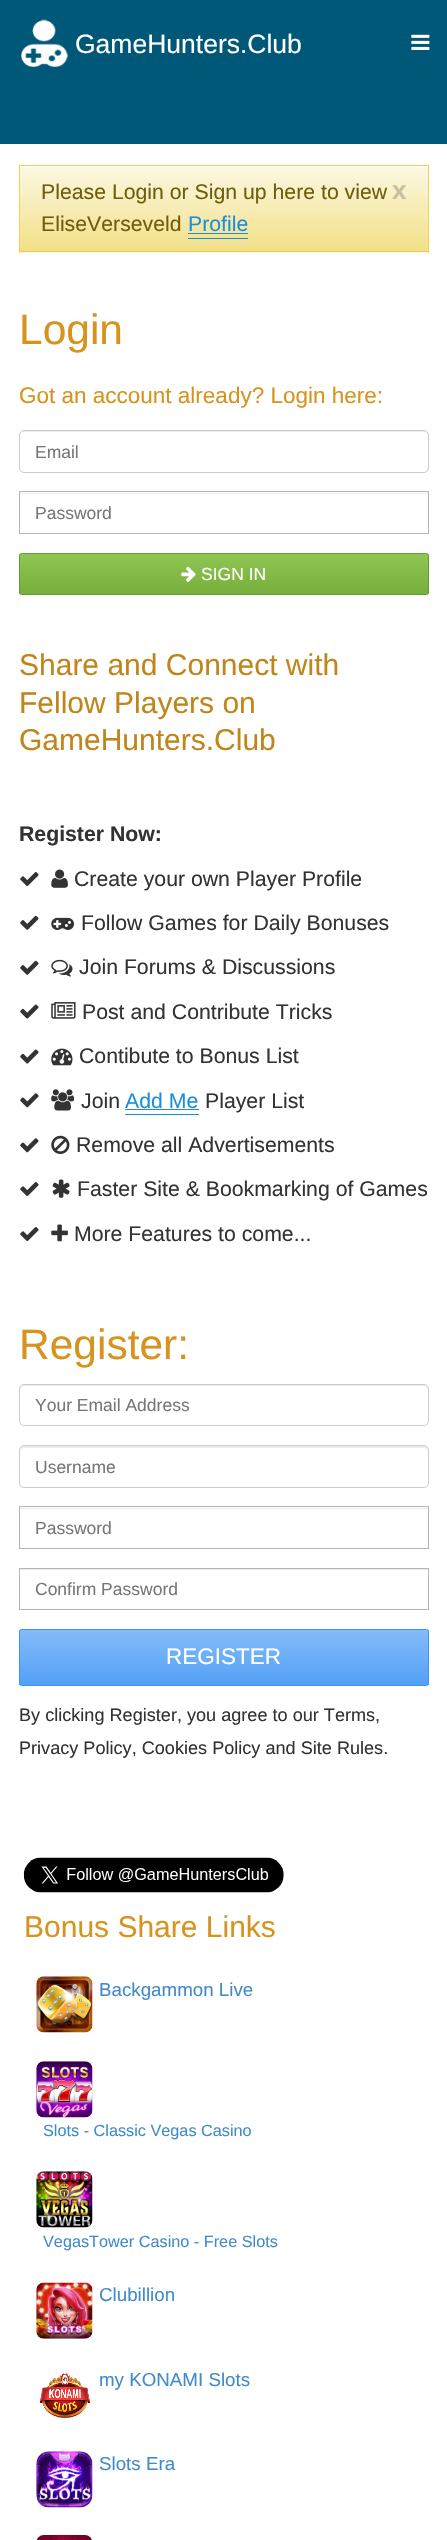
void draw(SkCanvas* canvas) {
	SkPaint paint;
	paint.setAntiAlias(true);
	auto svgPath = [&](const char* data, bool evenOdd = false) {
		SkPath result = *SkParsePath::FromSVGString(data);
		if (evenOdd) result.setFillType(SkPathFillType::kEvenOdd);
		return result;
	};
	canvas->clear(0xffffffff);
	paint.setColor(0xff005879);
	canvas->drawRect(SkRect::MakeXYWH(0, 0, 447, 144), paint);
	canvas->drawImageRect(SkImages::DeferredFromEncodedData(SkData::MakeFromFileName("img1.png")), SkRect::MakeXYWH(21, 19, 47, 49), SkSamplingOptions());
	SkFont f1(fontMgr->matchFamilyStyle("Liberation Sans", SkFontStyle::Normal()), 26.5);
	f1.setSubpixel(true);
	paint.setColor(0xffffffff);
	canvas->drawString("GameHunters.Club", 75, 53, f1, paint);
	canvas->drawImageRect(SkImages::DeferredFromEncodedData(SkData::MakeFromFileName("img2.png")), SkRect::MakeXYWH(411, 34, 19, 16), SkSamplingOptions());
	{
		const SkColor colors[] = {0xfff2e087, 0xfffcf8e3};
		const float stops[] = {0, 1};
		const SkPoint ends[] = {{20, 251}, {20, 166}};
		paint.setShader(SkGradientShader::MakeLinear(ends, colors, stops, 2, SkTileMode::kClamp));
		paint.setAlpha(255);
	}
	canvas->drawRect(SkRect::MakeXYWH(20, 167, 408, 84), paint);
	{
		const SkColor colors[] = {0xfff2e087, 0xfffcf8e3};
		const float stops[] = {0, 1};
		const SkPoint ends[] = {{20, 336}, {20, 251}};
		paint.setShader(SkGradientShader::MakeLinear(ends, colors, stops, 2, SkTileMode::kClamp));
		paint.setAlpha(255);
	}
	canvas->drawRect(SkRect::MakeXYWH(19, 252, 410, 1), paint);
	paint.setShader(nullptr);
	paint.setColor(0xfffefdf6);
	canvas->drawRect(SkRect::MakeXYWH(20, 166, 408, 1), paint);
	paint.setColor(0xffedd459);
	canvas->drawRect(SkRect::MakeXYWH(19, 165, 410, 1), paint);
	canvas->drawRect(SkRect::MakeXYWH(428, 165, 1, 88), paint);
	paint.setColor(0xffebd047);
	canvas->drawRect(SkRect::MakeXYWH(19, 251, 410, 1), paint);
	paint.setColor(0xffedd459);
	canvas->drawRect(SkRect::MakeXYWH(19, 165, 1, 88), paint);
	SkFont f2(fontMgr->matchFamilyStyle("Liberation Sans", SkFontStyle::Normal()), 21.25);
	f2.setSubpixel(true);
	paint.setColor(0xff6e5e0c);
	canvas->drawString("Please Login or Sign up here to view", 41, 199, f2, paint);
	SkFont f3(fontMgr->matchFamilyStyle("Liberation Sans", SkFontStyle::Bold()), 26);
	f3.setSubpixel(true);
	paint.setColor(0xffc7c19f);
	canvas->drawString("x", 392, 199, f3, paint);
	paint.setColor(0xff6e5e0c);
	canvas->drawString("EliseVerseveld", 41, 231, f2, paint);
	paint.setColor(0xff1b8ede);
	canvas->drawString("Profile", 188, 231, f2, paint);
	canvas->drawRect(SkRect::MakeXYWH(188, 238, 60, 1), paint);
	canvas->drawRect(SkRect::MakeXYWH(188, 233, 60, 1), paint);
	SkFont f4(fontMgr->matchFamilyStyle("Liberation Sans", SkFontStyle::Normal()), 42.5);
	f4.setSubpixel(true);
	paint.setColor(0xffd6941e);
	canvas->drawString("Login", 19, 344, f4, paint);
	SkFont f5(fontMgr->matchFamilyStyle("Liberation Sans", SkFontStyle::Normal()), 22.5);
	f5.setSubpixel(true);
	canvas->drawString("Got an account already? Login here:", 19, 403, f5, paint);
	paint.setColor(0xffececec);
	canvas->drawPath(svgPath("M24 432H424C426 432 428 434 428 436V435C428 433 426 431 424 431H24C22 431 20 433 20 435V436C20 434 22 432 24 432Z"), paint);
	paint.setStroke(true);
	paint.setStrokeWidth(1);
	paint.setColor(0xffcccccc);
	canvas->drawRoundRect(SkRect::MakeXYWH(19.5, 430.5, 409, 42), 4.5, 4.5, paint);
	SkFont f6(fontMgr->matchFamilyStyle("Liberation Sans", SkFontStyle::Normal()), 17.5);
	f6.setSubpixel(true);
	paint.setStroke(false);
	paint.setColor(0xff777777);
	canvas->drawString("Email", 35, 458, f6, paint);
	paint.setColor(0xffececec);
	canvas->drawRect(SkRect::MakeXYWH(20, 493, 408, 1), paint);
	paint.setStroke(true);
	paint.setColor(0xffb4b4bf);
	canvas->drawRect(SkRect::MakeXYWH(19.5, 491.5, 409, 42), paint);
	paint.setStroke(false);
	paint.setColor(0xff777777);
	canvas->drawString("Password", 35, 519, f6, paint);
	canvas->save();
	canvas->clipPath(svgPath("M21.5 553H426.5C428 553 429 554 429 555.5V592.5C429 594 428 595 426.5 595H21.5C20 595 19 594 19 592.5V555.5C19 554 20 553 21.5 553Z"), true);
	{
		const SkColor colors[] = {0xff90c654, 0xff77ad3a};
		const float stops[] = {0, 1};
		const SkPoint ends[] = {{224, 554}, {224, 594}};
		paint.setShader(SkGradientShader::MakeLinear(ends, colors, stops, 2, SkTileMode::kClamp));
		paint.setAlpha(255);
	}
	canvas->drawRect(SkRect::MakeXYWH(19, 554, 410, 40), paint);
	canvas->restore();
	paint.setStroke(true);
	paint.setShader(nullptr);
	paint.setColor(0xff699a33);
	canvas->drawRoundRect(SkRect::MakeXYWH(19.5, 553.5, 409, 41), 2, 2, paint);
	canvas->drawImageRect(SkImages::DeferredFromEncodedData(SkData::MakeFromFileName("img3.png")), SkRect::MakeXYWH(181, 566, 15, 16), SkSamplingOptions());
	paint.setStroke(false);
	paint.setColor(0xffffffff);
	canvas->drawString("SIGN IN", 201, 580, f6, paint);
	SkFont f7(fontMgr->matchFamilyStyle("Liberation Sans", SkFontStyle::Normal()), 30);
	f7.setSubpixel(true);
	paint.setColor(0xffc0851b);
	canvas->drawString("Share and Connect with", 19, 675, f7, paint);
	canvas->drawString("Fellow Players on", 19, 713, f7, paint);
	canvas->drawString("GameHunters.Club", 19, 750, f7, paint);
	SkFont f8(fontMgr->matchFamilyStyle("Liberation Sans", SkFontStyle::Bold()), 21.25);
	f8.setSubpixel(true);
	paint.setColor(0xff333333);
	canvas->drawString("Register Now:", 19, 841, f8, paint);
	canvas->drawImageRect(SkImages::DeferredFromEncodedData(SkData::MakeFromFileName("img4.png")), SkRect::MakeXYWH(20, 872, 19, 15), SkSamplingOptions());
	canvas->drawImageRect(SkImages::DeferredFromEncodedData(SkData::MakeFromFileName("img5.png")), SkRect::MakeXYWH(51, 869, 17, 19), SkSamplingOptions());
	canvas->drawString("Create your own Player Profile", 74, 886, f2, paint);
	canvas->drawImageRect(SkImages::DeferredFromEncodedData(SkData::MakeFromFileName("img6.png")), SkRect::MakeXYWH(20, 915, 19, 15), SkSamplingOptions());
	canvas->drawImageRect(SkImages::DeferredFromEncodedData(SkData::MakeFromFileName("img7.png")), SkRect::MakeXYWH(51, 917, 23, 13), SkSamplingOptions());
	canvas->drawString("Follow Games for Daily Bonuses", 81, 930, f2, paint);
	canvas->drawImageRect(SkImages::DeferredFromEncodedData(SkData::MakeFromFileName("img6.png")), SkRect::MakeXYWH(20, 960, 19, 15), SkSamplingOptions());
	canvas->drawImageRect(SkImages::DeferredFromEncodedData(SkData::MakeFromFileName("img8.png")), SkRect::MakeXYWH(51, 959, 22, 18), SkSamplingOptions());
	canvas->drawString("Join Forums & Discussions", 79, 974, f2, paint);
	canvas->drawImageRect(SkImages::DeferredFromEncodedData(SkData::MakeFromFileName("img9.png")), SkRect::MakeXYWH(20, 1004, 19, 15), SkSamplingOptions());
	canvas->drawImageRect(SkImages::DeferredFromEncodedData(SkData::MakeFromFileName("img10.png")), SkRect::MakeXYWH(51, 1002, 25, 17), SkSamplingOptions());
	canvas->drawString("Post and Contribute Tricks", 82, 1019, f2, paint);
	canvas->drawImageRect(SkImages::DeferredFromEncodedData(SkData::MakeFromFileName("img9.png")), SkRect::MakeXYWH(20, 1049, 19, 15), SkSamplingOptions());
	canvas->drawImageRect(SkImages::DeferredFromEncodedData(SkData::MakeFromFileName("img11.png")), SkRect::MakeXYWH(51, 1048, 22, 18), SkSamplingOptions());
	canvas->drawString("Contibute to Bonus List", 79, 1063, f2, paint);
	canvas->drawImageRect(SkImages::DeferredFromEncodedData(SkData::MakeFromFileName("img12.png")), SkRect::MakeXYWH(20, 1093, 19, 15), SkSamplingOptions());
	canvas->drawImageRect(SkImages::DeferredFromEncodedData(SkData::MakeFromFileName("img13.png")), SkRect::MakeXYWH(51, 1089, 23, 22), SkSamplingOptions());
	canvas->drawString("Join", 81, 1108, f2, paint);
	paint.setColor(0xff1b8ede);
	canvas->drawString("Add Me", 125, 1108, f2, paint);
	canvas->drawRect(SkRect::MakeXYWH(125, 1114, 74, 1), paint);
	canvas->drawRect(SkRect::MakeXYWH(125, 1109, 74, 1), paint);
	paint.setColor(0xff333333);
	canvas->drawString("Player List", 205, 1108, f2, paint);
	canvas->drawImageRect(SkImages::DeferredFromEncodedData(SkData::MakeFromFileName("img12.png")), SkRect::MakeXYWH(20, 1138, 19, 15), SkSamplingOptions());
	canvas->drawImageRect(SkImages::DeferredFromEncodedData(SkData::MakeFromFileName("img14.png")), SkRect::MakeXYWH(51, 1135, 19, 19), SkSamplingOptions());
	canvas->drawString("Remove all Advertisements", 76, 1152, f2, paint);
	canvas->drawImageRect(SkImages::DeferredFromEncodedData(SkData::MakeFromFileName("img4.png")), SkRect::MakeXYWH(20, 1182, 19, 15), SkSamplingOptions());
	canvas->drawImageRect(SkImages::DeferredFromEncodedData(SkData::MakeFromFileName("img15.png")), SkRect::MakeXYWH(52, 1179, 18, 19), SkSamplingOptions());
	canvas->drawString("Faster Site & Bookmarking of Games", 77, 1196, f2, paint);
	canvas->drawImageRect(SkImages::DeferredFromEncodedData(SkData::MakeFromFileName("img4.png")), SkRect::MakeXYWH(20, 1227, 19, 15), SkSamplingOptions());
	canvas->drawImageRect(SkImages::DeferredFromEncodedData(SkData::MakeFromFileName("img16.png")), SkRect::MakeXYWH(51, 1224, 17, 18), SkSamplingOptions());
	canvas->drawString("More Features to come...", 74, 1241, f2, paint);
	paint.setColor(0xffd6941e);
	canvas->drawString("Register:", 19, 1359, f4, paint);
	paint.setColor(0xffececec);
	canvas->drawPath(svgPath("M24 1386H424C426 1386 428 1388 428 1390V1389C428 1387 426 1385 424 1385H24C22 1385 20 1387 20 1389V1390C20 1388 22 1386 24 1386Z"), paint);
	paint.setStroke(true);
	paint.setColor(0xffcccccc);
	canvas->drawRoundRect(SkRect::MakeXYWH(19.5, 1384.5, 409, 41), 4.5, 4.5, paint);
	paint.setStroke(false);
	paint.setColor(0xff777777);
	canvas->drawString("Your Email Address", 35, 1411, f6, paint);
	paint.setColor(0xffececec);
	canvas->drawPath(svgPath("M24 1448H424C426 1448 428 1449 428 1451V1450C428 1448 426 1446 424 1446H24C22 1446 20 1448 20 1450V1451C20 1449 22 1448 24 1448Z"), paint);
	paint.setStroke(true);
	paint.setColor(0xffcccccc);
	canvas->drawRoundRect(SkRect::MakeXYWH(19.5, 1445.5, 409, 42), 4.5, 4.5, paint);
	paint.setStroke(false);
	paint.setColor(0xff777777);
	canvas->drawString("Username", 35, 1473, f6, paint);
	paint.setColor(0xffececec);
	canvas->drawRect(SkRect::MakeXYWH(20, 1508, 408, 1), paint);
	paint.setStroke(true);
	paint.setColor(0xffb4b4bf);
	canvas->drawRect(SkRect::MakeXYWH(19.5, 1506.5, 409, 42), paint);
	paint.setStroke(false);
	paint.setColor(0xff777777);
	canvas->drawString("Password", 35, 1534, f6, paint);
	paint.setColor(0xffececec);
	canvas->drawRect(SkRect::MakeXYWH(20, 1569, 408, 1), paint);
	paint.setStroke(true);
	paint.setColor(0xffb4b4bf);
	canvas->drawRect(SkRect::MakeXYWH(19.5, 1568.5, 409, 41), paint);
	paint.setStroke(false);
	paint.setColor(0xff777777);
	canvas->drawString("Confirm Password", 35, 1595, f6, paint);
	canvas->save();
	canvas->clipPath(svgPath("M21.5 1629H426.5C428 1629 429 1630 429 1631.5V1683.5C429 1685 428 1686 426.5 1686H21.5C20 1686 19 1685 19 1683.5V1631.5C19 1630 20 1629 21.5 1629Z"), true);
	{
		const SkColor colors[] = {0xff84bbf9, 0xff54a0f6};
		const float stops[] = {0, 1};
		const SkPoint ends[] = {{224, 1630}, {224, 1685}};
		paint.setShader(SkGradientShader::MakeLinear(ends, colors, stops, 2, SkTileMode::kClamp));
		paint.setAlpha(255);
	}
	canvas->drawRect(SkRect::MakeXYWH(19, 1630, 410, 55), paint);
	canvas->restore();
	paint.setStroke(true);
	paint.setShader(nullptr);
	paint.setColor(0xff3c93f5);
	canvas->drawRoundRect(SkRect::MakeXYWH(19.5, 1629.5, 409, 56), 2, 2, paint);
	paint.setStroke(false);
	paint.setColor(0xffffffff);
	canvas->drawString("REGISTER", 166, 1664, f5, paint);
	SkFont f9(fontMgr->matchFamilyStyle("Liberation Sans", SkFontStyle::Normal()), 18.1);
	f9.setSubpixel(true);
	paint.setColor(0xff333333);
	canvas->drawString("By clicking Register, you agree to our Terms,", 19, 1721, f9, paint);
	canvas->drawString("Privacy Policy, Cookies Policy and Site Rules.", 19, 1754, f9, paint);
	canvas->drawImageRect(SkImages::DeferredFromEncodedData(SkData::MakeFromFileName("img17.png")), SkRect::MakeXYWH(23, 1857, 261, 36), SkSamplingOptions());
	paint.setColor(0xffd6941e);
	canvas->drawString("Bonus Share Links", 24, 1937, f7, paint);
	canvas->drawImageRect(SkImages::DeferredFromEncodedData(SkData::MakeFromFileName("img18.png")), SkRect::MakeXYWH(36, 1976, 57, 57), SkSamplingOptions());
	SkFont f10(fontMgr->matchFamilyStyle("Liberation Sans", SkFontStyle::Normal()), 18.75);
	f10.setSubpixel(true);
	paint.setColor(0xff428bca);
	canvas->drawString("Backgammon Live", 99, 1996, f10, paint);
	canvas->drawImageRect(SkImages::DeferredFromEncodedData(SkData::MakeFromFileName("img19.png")), SkRect::MakeXYWH(36, 2061, 57, 57), SkSamplingOptions());
	SkFont f11(fontMgr->matchFamilyStyle("Liberation Sans", SkFontStyle::Normal()), 16.25);
	f11.setSubpixel(true);
	canvas->drawString("Slots - Classic Vegas Casino", 43, 2136, f11, paint);
	canvas->drawImageRect(SkImages::DeferredFromEncodedData(SkData::MakeFromFileName("img20.png")), SkRect::MakeXYWH(36, 2171, 57, 57), SkSamplingOptions());
	canvas->drawString("VegasTower Casino - Free Slots", 43, 2247, f11, paint);
	canvas->drawImageRect(SkImages::DeferredFromEncodedData(SkData::MakeFromFileName("img21.png")), SkRect::MakeXYWH(36, 2282, 57, 57), SkSamplingOptions());
	canvas->drawString("Clubillion", 99, 2301, f10, paint);
	canvas->drawImageRect(SkImages::DeferredFromEncodedData(SkData::MakeFromFileName("img22.png")), SkRect::MakeXYWH(39, 2372, 52, 47), SkSamplingOptions());
	canvas->drawString("my KONAMI Slots", 99, 2386, f10, paint);
	canvas->drawImageRect(SkImages::DeferredFromEncodedData(SkData::MakeFromFileName("img23.png")), SkRect::MakeXYWH(36, 2451, 57, 57), SkSamplingOptions());
	canvas->drawString("Slots Era", 99, 2470, f10, paint);
	canvas->drawImageRect(SkImages::DeferredFromEncodedData(SkData::MakeFromFileName("img24.png")), SkRect::MakeXYWH(37, 2535, 55, 5), SkSamplingOptions());
}
